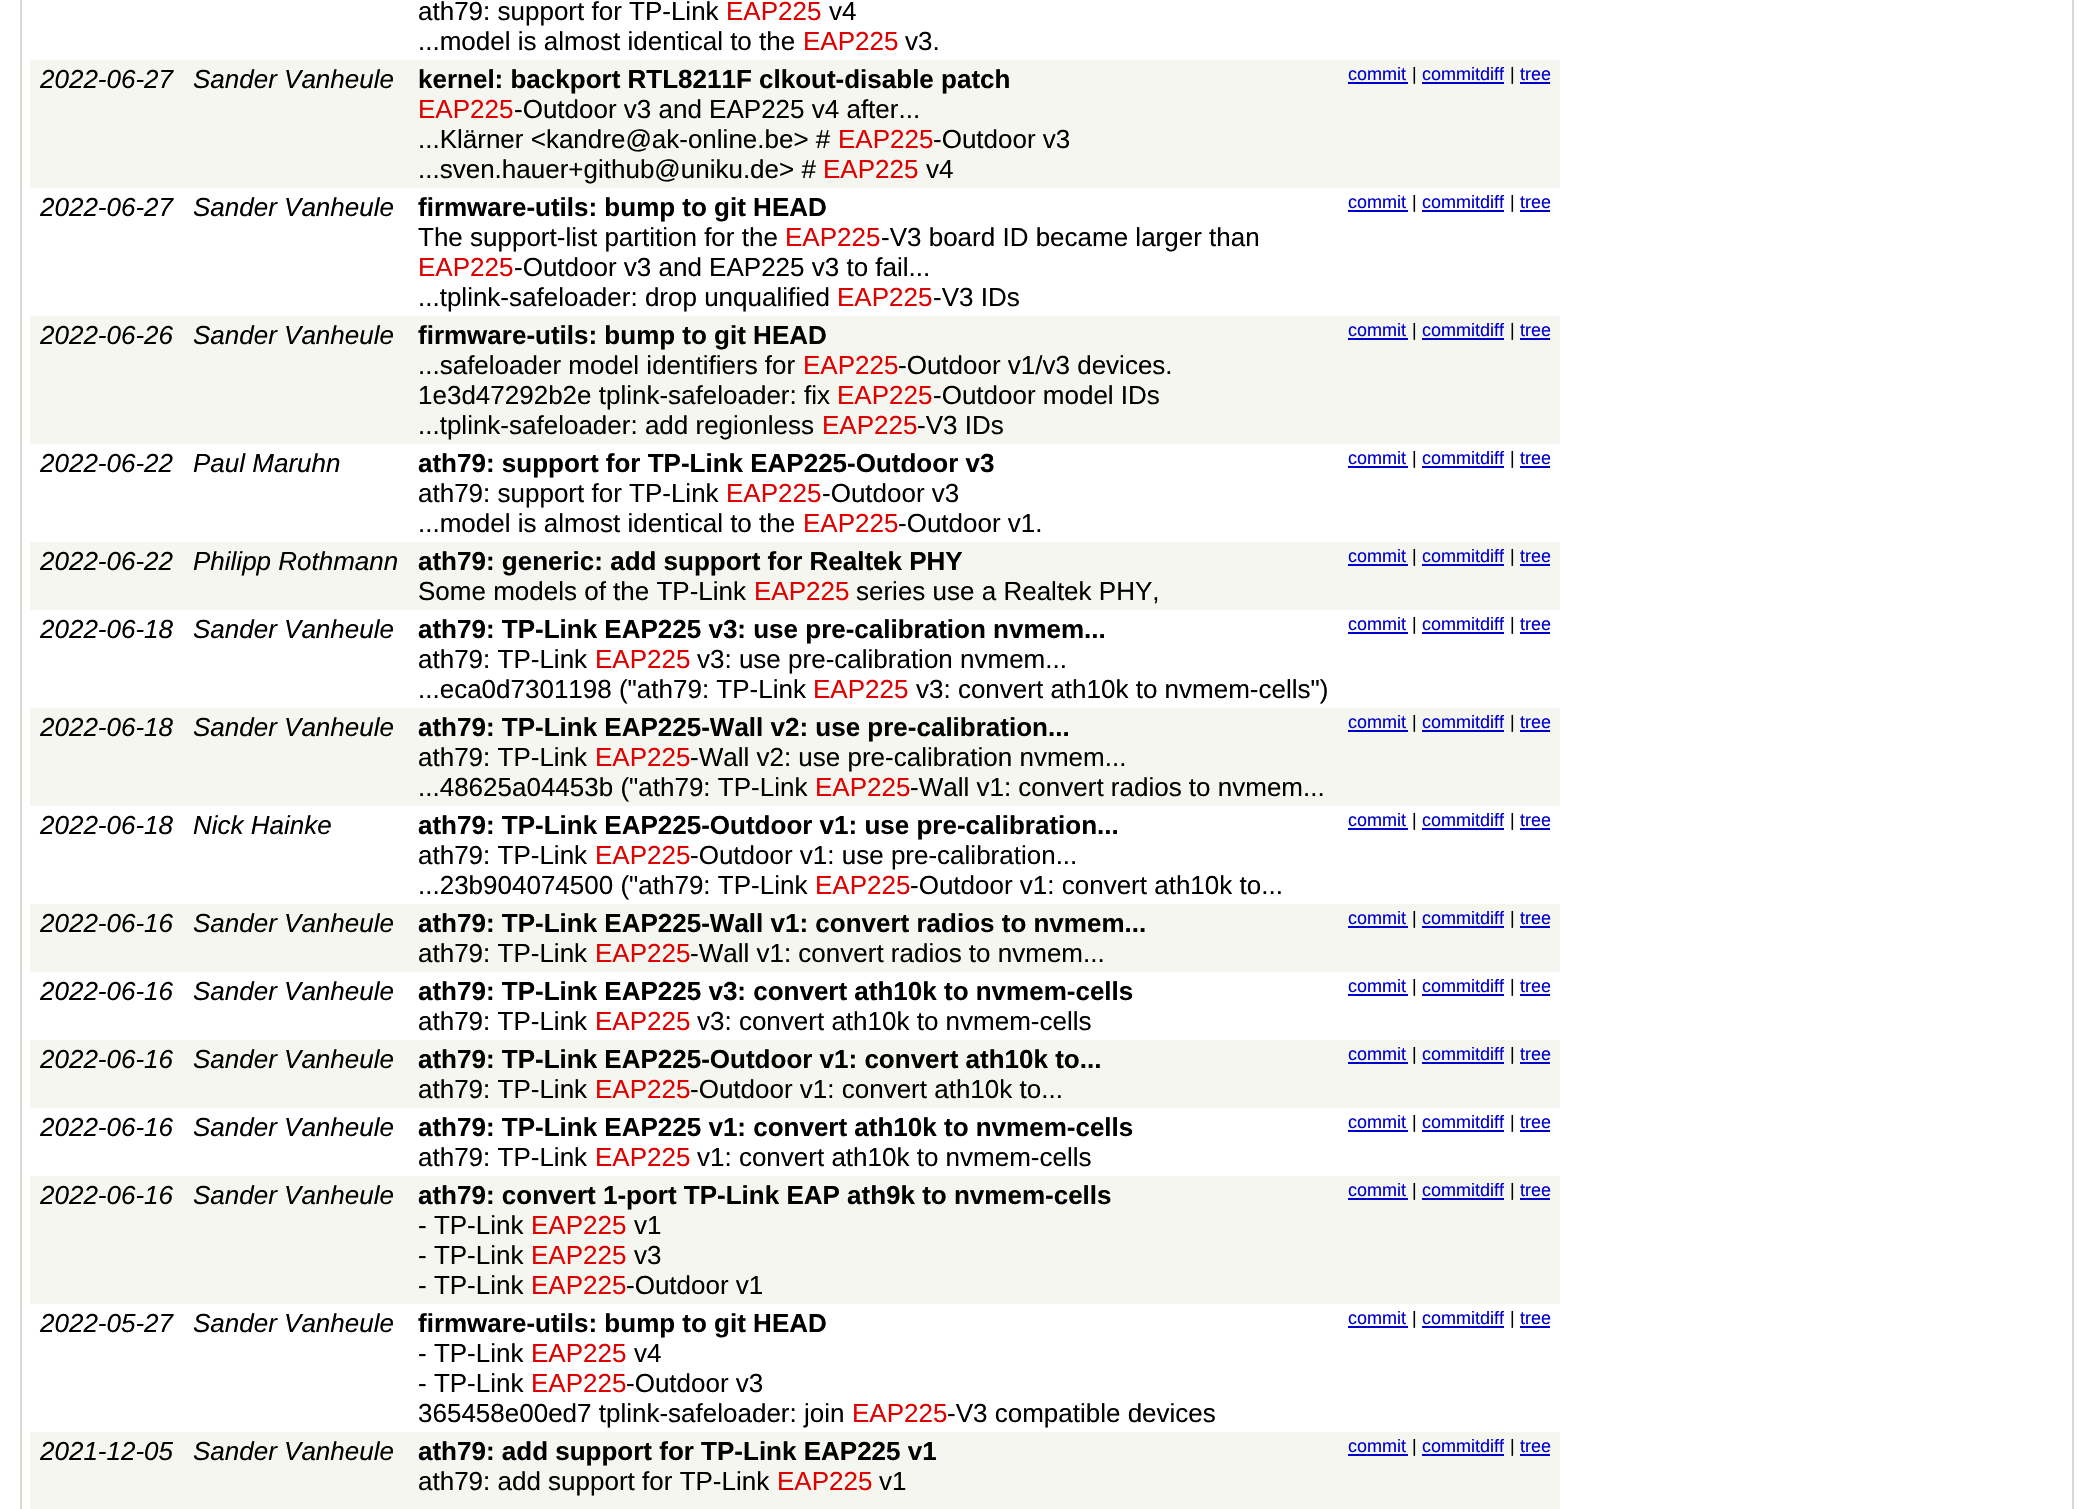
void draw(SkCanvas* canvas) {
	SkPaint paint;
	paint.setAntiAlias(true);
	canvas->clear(0xffffffff);
	paint.setStroke(true);
	paint.setStrokeWidth(2);
	paint.setColor(0xffd9d8d1);
	canvas->drawRect(SkRect::MakeXYWH(21, -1, 2052, 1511), paint);
	SkFont f1(fontMgr->matchFamilyStyle("Liberation Sans", SkFontStyle::Normal()), 26);
	f1.setSubpixel(true);
	paint.setStroke(false);
	paint.setColor(0xff000000);
	canvas->drawString("ath79: support for TP-Link", 418, 20, f1, paint);
	paint.setColor(0xffe00000);
	canvas->drawString("EAP225", 726, 20, f1, paint);
	paint.setColor(0xff000000);
	canvas->drawString("v4", 829, 20, f1, paint);
	canvas->drawString("...model is almost identical to the", 418, 50, f1, paint);
	paint.setColor(0xffe00000);
	canvas->drawString("EAP225", 803, 50, f1, paint);
	paint.setColor(0xff000000);
	canvas->drawString("v3.", 905, 50, f1, paint);
	paint.setColor(0xfff6f6f0);
	canvas->drawRect(SkRect::MakeXYWH(30, 60, 1530, 128), paint);
	SkFont f2(fontMgr->matchFamilyStyle("Liberation Sans", SkFontStyle::Italic()), 26);
	f2.setSubpixel(true);
	paint.setColor(0xff000000);
	canvas->drawString("2022-06-27", 40, 88, f2, paint);
	canvas->drawString("Sander Vanheule", 193, 88, f2, paint);
	SkFont f3(fontMgr->matchFamilyStyle("Liberation Sans", SkFontStyle::Bold()), 26);
	f3.setSubpixel(true);
	canvas->drawString("kernel: backport RTL8211F clkout-disable patch", 418, 88, f3, paint);
	paint.setColor(0xffe00000);
	canvas->drawString("EAP225", 418, 118, f1, paint);
	paint.setColor(0xff000000);
	canvas->drawString("-Outdoor v3 and EAP225 v4 after...", 514, 118, f1, paint);
	canvas->drawString("...Klärner <kandre@ak-online.be> #", 418, 148, f1, paint);
	paint.setColor(0xffe00000);
	canvas->drawString("EAP225", 838, 148, f1, paint);
	paint.setColor(0xff000000);
	canvas->drawString("-Outdoor v3", 933, 148, f1, paint);
	canvas->drawString("...sven.hauer+github@uniku.de> #", 418, 178, f1, paint);
	paint.setColor(0xffe00000);
	canvas->drawString("EAP225", 823, 178, f1, paint);
	paint.setColor(0xff000000);
	canvas->drawString("v4", 926, 178, f1, paint);
	SkFont f4(fontMgr->matchFamilyStyle("Liberation Sans", SkFontStyle::Normal()), 18);
	f4.setSubpixel(true);
	paint.setColor(0xff0000cc);
	canvas->drawString("commit", 1348, 80, f4, paint);
	canvas->drawRect(SkRect::MakeXYWH(1348, 82, 60, 2), paint);
	paint.setColor(0xff000000);
	canvas->drawString("|", 1412, 80, f4, paint);
	paint.setColor(0xff0000cc);
	canvas->drawString("commitdiff", 1422, 80, f4, paint);
	canvas->drawRect(SkRect::MakeXYWH(1422, 82, 82, 2), paint);
	paint.setColor(0xff000000);
	canvas->drawString("|", 1510, 80, f4, paint);
	paint.setColor(0xff0000cc);
	canvas->drawString("tree", 1520, 80, f4, paint);
	canvas->drawRect(SkRect::MakeXYWH(1520, 82, 30, 2), paint);
	paint.setColor(0xff000000);
	canvas->drawString("2022-06-27", 40, 216, f2, paint);
	canvas->drawString("Sander Vanheule", 193, 216, f2, paint);
	canvas->drawString("firmware-utils: bump to git HEAD", 418, 216, f3, paint);
	canvas->drawString("The support-list partition for the", 418, 246, f1, paint);
	paint.setColor(0xffe00000);
	canvas->drawString("EAP225", 785, 246, f1, paint);
	paint.setColor(0xff000000);
	canvas->drawString("-V3 board ID became larger than", 881, 246, f1, paint);
	paint.setColor(0xffe00000);
	canvas->drawString("EAP225", 418, 276, f1, paint);
	paint.setColor(0xff000000);
	canvas->drawString("-Outdoor v3 and EAP225 v3 to fail...", 514, 276, f1, paint);
	canvas->drawString("...tplink-safeloader: drop unqualified", 418, 306, f1, paint);
	paint.setColor(0xffe00000);
	canvas->drawString("EAP225", 837, 306, f1, paint);
	paint.setColor(0xff000000);
	canvas->drawString("-V3 IDs", 933, 306, f1, paint);
	paint.setColor(0xff0000cc);
	canvas->drawString("commit", 1348, 208, f4, paint);
	canvas->drawRect(SkRect::MakeXYWH(1348, 210, 60, 2), paint);
	paint.setColor(0xff000000);
	canvas->drawString("|", 1412, 208, f4, paint);
	paint.setColor(0xff0000cc);
	canvas->drawString("commitdiff", 1422, 208, f4, paint);
	canvas->drawRect(SkRect::MakeXYWH(1422, 210, 82, 2), paint);
	paint.setColor(0xff000000);
	canvas->drawString("|", 1510, 208, f4, paint);
	paint.setColor(0xff0000cc);
	canvas->drawString("tree", 1520, 208, f4, paint);
	canvas->drawRect(SkRect::MakeXYWH(1520, 210, 30, 2), paint);
	paint.setColor(0xfff6f6f0);
	canvas->drawRect(SkRect::MakeXYWH(30, 316, 1530, 128), paint);
	paint.setColor(0xff000000);
	canvas->drawString("2022-06-26", 40, 344, f2, paint);
	canvas->drawString("Sander Vanheule", 193, 344, f2, paint);
	canvas->drawString("firmware-utils: bump to git HEAD", 418, 344, f3, paint);
	canvas->drawString("...safeloader model identifiers for", 418, 374, f1, paint);
	paint.setColor(0xffe00000);
	canvas->drawString("EAP225", 803, 374, f1, paint);
	paint.setColor(0xff000000);
	canvas->drawString("-Outdoor v1/v3 devices.", 898, 374, f1, paint);
	canvas->drawString("1e3d47292b2e tplink-safeloader: fix", 418, 404, f1, paint);
	paint.setColor(0xffe00000);
	canvas->drawString("EAP225", 837, 404, f1, paint);
	paint.setColor(0xff000000);
	canvas->drawString("-Outdoor model IDs", 933, 404, f1, paint);
	canvas->drawString("...tplink-safeloader: add regionless", 418, 434, f1, paint);
	paint.setColor(0xffe00000);
	canvas->drawString("EAP225", 822, 434, f1, paint);
	paint.setColor(0xff000000);
	canvas->drawString("-V3 IDs", 917, 434, f1, paint);
	paint.setColor(0xff0000cc);
	canvas->drawString("commit", 1348, 336, f4, paint);
	canvas->drawRect(SkRect::MakeXYWH(1348, 338, 60, 2), paint);
	paint.setColor(0xff000000);
	canvas->drawString("|", 1412, 336, f4, paint);
	paint.setColor(0xff0000cc);
	canvas->drawString("commitdiff", 1422, 336, f4, paint);
	canvas->drawRect(SkRect::MakeXYWH(1422, 338, 82, 2), paint);
	paint.setColor(0xff000000);
	canvas->drawString("|", 1510, 336, f4, paint);
	paint.setColor(0xff0000cc);
	canvas->drawString("tree", 1520, 336, f4, paint);
	canvas->drawRect(SkRect::MakeXYWH(1520, 338, 30, 2), paint);
	paint.setColor(0xff000000);
	canvas->drawString("2022-06-22", 40, 472, f2, paint);
	canvas->drawString("Paul Maruhn", 193, 472, f2, paint);
	canvas->drawString("ath79: support for TP-Link EAP225-Outdoor v3", 418, 472, f3, paint);
	canvas->drawString("ath79: support for TP-Link", 418, 502, f1, paint);
	paint.setColor(0xffe00000);
	canvas->drawString("EAP225", 726, 502, f1, paint);
	paint.setColor(0xff000000);
	canvas->drawString("-Outdoor v3", 822, 502, f1, paint);
	canvas->drawString("...model is almost identical to the", 418, 532, f1, paint);
	paint.setColor(0xffe00000);
	canvas->drawString("EAP225", 803, 532, f1, paint);
	paint.setColor(0xff000000);
	canvas->drawString("-Outdoor v1.", 898, 532, f1, paint);
	paint.setColor(0xff0000cc);
	canvas->drawString("commit", 1348, 464, f4, paint);
	canvas->drawRect(SkRect::MakeXYWH(1348, 466, 60, 2), paint);
	paint.setColor(0xff000000);
	canvas->drawString("|", 1412, 464, f4, paint);
	paint.setColor(0xff0000cc);
	canvas->drawString("commitdiff", 1422, 464, f4, paint);
	canvas->drawRect(SkRect::MakeXYWH(1422, 466, 82, 2), paint);
	paint.setColor(0xff000000);
	canvas->drawString("|", 1510, 464, f4, paint);
	paint.setColor(0xff0000cc);
	canvas->drawString("tree", 1520, 464, f4, paint);
	canvas->drawRect(SkRect::MakeXYWH(1520, 466, 30, 2), paint);
	paint.setColor(0xfff6f6f0);
	canvas->drawRect(SkRect::MakeXYWH(30, 542, 1530, 68), paint);
	paint.setColor(0xff000000);
	canvas->drawString("2022-06-22", 40, 570, f2, paint);
	canvas->drawString("Philipp Rothmann", 193, 570, f2, paint);
	canvas->drawString("ath79: generic: add support for Realtek PHY", 418, 570, f3, paint);
	canvas->drawString("Some models of the TP-Link", 418, 600, f1, paint);
	paint.setColor(0xffe00000);
	canvas->drawString("EAP225", 754, 600, f1, paint);
	paint.setColor(0xff000000);
	canvas->drawString("series use a Realtek PHY,", 856, 600, f1, paint);
	paint.setColor(0xff0000cc);
	canvas->drawString("commit", 1348, 562, f4, paint);
	canvas->drawRect(SkRect::MakeXYWH(1348, 564, 60, 2), paint);
	paint.setColor(0xff000000);
	canvas->drawString("|", 1412, 562, f4, paint);
	paint.setColor(0xff0000cc);
	canvas->drawString("commitdiff", 1422, 562, f4, paint);
	canvas->drawRect(SkRect::MakeXYWH(1422, 564, 82, 2), paint);
	paint.setColor(0xff000000);
	canvas->drawString("|", 1510, 562, f4, paint);
	paint.setColor(0xff0000cc);
	canvas->drawString("tree", 1520, 562, f4, paint);
	canvas->drawRect(SkRect::MakeXYWH(1520, 564, 30, 2), paint);
	paint.setColor(0xff000000);
	canvas->drawString("2022-06-18", 40, 638, f2, paint);
	canvas->drawString("Sander Vanheule", 193, 638, f2, paint);
	canvas->drawString("ath79: TP-Link EAP225 v3: use pre-calibration nvmem...", 418, 638, f3, paint);
	canvas->drawString("ath79: TP-Link", 418, 668, f1, paint);
	paint.setColor(0xffe00000);
	canvas->drawString("EAP225", 595, 668, f1, paint);
	paint.setColor(0xff000000);
	canvas->drawString("v3: use pre-calibration nvmem...", 697, 668, f1, paint);
	canvas->drawString("...eca0d7301198 (\"ath79: TP-Link", 418, 698, f1, paint);
	paint.setColor(0xffe00000);
	canvas->drawString("EAP225", 813, 698, f1, paint);
	paint.setColor(0xff000000);
	canvas->drawString("v3: convert ath10k to nvmem-cells\")", 916, 698, f1, paint);
	paint.setColor(0xff0000cc);
	canvas->drawString("commit", 1348, 630, f4, paint);
	canvas->drawRect(SkRect::MakeXYWH(1348, 632, 60, 2), paint);
	paint.setColor(0xff000000);
	canvas->drawString("|", 1412, 630, f4, paint);
	paint.setColor(0xff0000cc);
	canvas->drawString("commitdiff", 1422, 630, f4, paint);
	canvas->drawRect(SkRect::MakeXYWH(1422, 632, 82, 2), paint);
	paint.setColor(0xff000000);
	canvas->drawString("|", 1510, 630, f4, paint);
	paint.setColor(0xff0000cc);
	canvas->drawString("tree", 1520, 630, f4, paint);
	canvas->drawRect(SkRect::MakeXYWH(1520, 632, 30, 2), paint);
	paint.setColor(0xfff6f6f0);
	canvas->drawRect(SkRect::MakeXYWH(30, 708, 1530, 98), paint);
	paint.setColor(0xff000000);
	canvas->drawString("2022-06-18", 40, 736, f2, paint);
	canvas->drawString("Sander Vanheule", 193, 736, f2, paint);
	canvas->drawString("ath79: TP-Link EAP225-Wall v2: use pre-calibration...", 418, 736, f3, paint);
	canvas->drawString("ath79: TP-Link", 418, 766, f1, paint);
	paint.setColor(0xffe00000);
	canvas->drawString("EAP225", 595, 766, f1, paint);
	paint.setColor(0xff000000);
	canvas->drawString("-Wall v2: use pre-calibration nvmem...", 690, 766, f1, paint);
	canvas->drawString("...48625a04453b (\"ath79: TP-Link", 418, 796, f1, paint);
	paint.setColor(0xffe00000);
	canvas->drawString("EAP225", 815, 796, f1, paint);
	paint.setColor(0xff000000);
	canvas->drawString("-Wall v1: convert radios to nvmem...", 910, 796, f1, paint);
	paint.setColor(0xff0000cc);
	canvas->drawString("commit", 1348, 728, f4, paint);
	canvas->drawRect(SkRect::MakeXYWH(1348, 730, 60, 2), paint);
	paint.setColor(0xff000000);
	canvas->drawString("|", 1412, 728, f4, paint);
	paint.setColor(0xff0000cc);
	canvas->drawString("commitdiff", 1422, 728, f4, paint);
	canvas->drawRect(SkRect::MakeXYWH(1422, 730, 82, 2), paint);
	paint.setColor(0xff000000);
	canvas->drawString("|", 1510, 728, f4, paint);
	paint.setColor(0xff0000cc);
	canvas->drawString("tree", 1520, 728, f4, paint);
	canvas->drawRect(SkRect::MakeXYWH(1520, 730, 30, 2), paint);
	paint.setColor(0xff000000);
	canvas->drawString("2022-06-18", 40, 834, f2, paint);
	canvas->drawString("Nick Hainke", 193, 834, f2, paint);
	canvas->drawString("ath79: TP-Link EAP225-Outdoor v1: use pre-calibration...", 418, 834, f3, paint);
	canvas->drawString("ath79: TP-Link", 418, 864, f1, paint);
	paint.setColor(0xffe00000);
	canvas->drawString("EAP225", 595, 864, f1, paint);
	paint.setColor(0xff000000);
	canvas->drawString("-Outdoor v1: use pre-calibration...", 690, 864, f1, paint);
	canvas->drawString("...23b904074500 (\"ath79: TP-Link", 418, 894, f1, paint);
	paint.setColor(0xffe00000);
	canvas->drawString("EAP225", 815, 894, f1, paint);
	paint.setColor(0xff000000);
	canvas->drawString("-Outdoor v1: convert ath10k to...", 910, 894, f1, paint);
	paint.setColor(0xff0000cc);
	canvas->drawString("commit", 1348, 826, f4, paint);
	canvas->drawRect(SkRect::MakeXYWH(1348, 828, 60, 2), paint);
	paint.setColor(0xff000000);
	canvas->drawString("|", 1412, 826, f4, paint);
	paint.setColor(0xff0000cc);
	canvas->drawString("commitdiff", 1422, 826, f4, paint);
	canvas->drawRect(SkRect::MakeXYWH(1422, 828, 82, 2), paint);
	paint.setColor(0xff000000);
	canvas->drawString("|", 1510, 826, f4, paint);
	paint.setColor(0xff0000cc);
	canvas->drawString("tree", 1520, 826, f4, paint);
	canvas->drawRect(SkRect::MakeXYWH(1520, 828, 30, 2), paint);
	paint.setColor(0xfff6f6f0);
	canvas->drawRect(SkRect::MakeXYWH(30, 904, 1530, 68), paint);
	paint.setColor(0xff000000);
	canvas->drawString("2022-06-16", 40, 932, f2, paint);
	canvas->drawString("Sander Vanheule", 193, 932, f2, paint);
	canvas->drawString("ath79: TP-Link EAP225-Wall v1: convert radios to nvmem...", 418, 932, f3, paint);
	canvas->drawString("ath79: TP-Link", 418, 962, f1, paint);
	paint.setColor(0xffe00000);
	canvas->drawString("EAP225", 595, 962, f1, paint);
	paint.setColor(0xff000000);
	canvas->drawString("-Wall v1: convert radios to nvmem...", 690, 962, f1, paint);
	paint.setColor(0xff0000cc);
	canvas->drawString("commit", 1348, 924, f4, paint);
	canvas->drawRect(SkRect::MakeXYWH(1348, 926, 60, 2), paint);
	paint.setColor(0xff000000);
	canvas->drawString("|", 1412, 924, f4, paint);
	paint.setColor(0xff0000cc);
	canvas->drawString("commitdiff", 1422, 924, f4, paint);
	canvas->drawRect(SkRect::MakeXYWH(1422, 926, 82, 2), paint);
	paint.setColor(0xff000000);
	canvas->drawString("|", 1510, 924, f4, paint);
	paint.setColor(0xff0000cc);
	canvas->drawString("tree", 1520, 924, f4, paint);
	canvas->drawRect(SkRect::MakeXYWH(1520, 926, 30, 2), paint);
	paint.setColor(0xff000000);
	canvas->drawString("2022-06-16", 40, 1000, f2, paint);
	canvas->drawString("Sander Vanheule", 193, 1000, f2, paint);
	canvas->drawString("ath79: TP-Link EAP225 v3: convert ath10k to nvmem-cells", 418, 1000, f3, paint);
	canvas->drawString("ath79: TP-Link", 418, 1030, f1, paint);
	paint.setColor(0xffe00000);
	canvas->drawString("EAP225", 595, 1030, f1, paint);
	paint.setColor(0xff000000);
	canvas->drawString("v3: convert ath10k to nvmem-cells", 697, 1030, f1, paint);
	paint.setColor(0xff0000cc);
	canvas->drawString("commit", 1348, 992, f4, paint);
	canvas->drawRect(SkRect::MakeXYWH(1348, 994, 60, 2), paint);
	paint.setColor(0xff000000);
	canvas->drawString("|", 1412, 992, f4, paint);
	paint.setColor(0xff0000cc);
	canvas->drawString("commitdiff", 1422, 992, f4, paint);
	canvas->drawRect(SkRect::MakeXYWH(1422, 994, 82, 2), paint);
	paint.setColor(0xff000000);
	canvas->drawString("|", 1510, 992, f4, paint);
	paint.setColor(0xff0000cc);
	canvas->drawString("tree", 1520, 992, f4, paint);
	canvas->drawRect(SkRect::MakeXYWH(1520, 994, 30, 2), paint);
	paint.setColor(0xfff6f6f0);
	canvas->drawRect(SkRect::MakeXYWH(30, 1040, 1530, 68), paint);
	paint.setColor(0xff000000);
	canvas->drawString("2022-06-16", 40, 1068, f2, paint);
	canvas->drawString("Sander Vanheule", 193, 1068, f2, paint);
	canvas->drawString("ath79: TP-Link EAP225-Outdoor v1: convert ath10k to...", 418, 1068, f3, paint);
	canvas->drawString("ath79: TP-Link", 418, 1098, f1, paint);
	paint.setColor(0xffe00000);
	canvas->drawString("EAP225", 595, 1098, f1, paint);
	paint.setColor(0xff000000);
	canvas->drawString("-Outdoor v1: convert ath10k to...", 690, 1098, f1, paint);
	paint.setColor(0xff0000cc);
	canvas->drawString("commit", 1348, 1060, f4, paint);
	canvas->drawRect(SkRect::MakeXYWH(1348, 1062, 60, 2), paint);
	paint.setColor(0xff000000);
	canvas->drawString("|", 1412, 1060, f4, paint);
	paint.setColor(0xff0000cc);
	canvas->drawString("commitdiff", 1422, 1060, f4, paint);
	canvas->drawRect(SkRect::MakeXYWH(1422, 1062, 82, 2), paint);
	paint.setColor(0xff000000);
	canvas->drawString("|", 1510, 1060, f4, paint);
	paint.setColor(0xff0000cc);
	canvas->drawString("tree", 1520, 1060, f4, paint);
	canvas->drawRect(SkRect::MakeXYWH(1520, 1062, 30, 2), paint);
	paint.setColor(0xff000000);
	canvas->drawString("2022-06-16", 40, 1136, f2, paint);
	canvas->drawString("Sander Vanheule", 193, 1136, f2, paint);
	canvas->drawString("ath79: TP-Link EAP225 v1: convert ath10k to nvmem-cells", 418, 1136, f3, paint);
	canvas->drawString("ath79: TP-Link", 418, 1166, f1, paint);
	paint.setColor(0xffe00000);
	canvas->drawString("EAP225", 595, 1166, f1, paint);
	paint.setColor(0xff000000);
	canvas->drawString("v1: convert ath10k to nvmem-cells", 697, 1166, f1, paint);
	paint.setColor(0xff0000cc);
	canvas->drawString("commit", 1348, 1128, f4, paint);
	canvas->drawRect(SkRect::MakeXYWH(1348, 1130, 60, 2), paint);
	paint.setColor(0xff000000);
	canvas->drawString("|", 1412, 1128, f4, paint);
	paint.setColor(0xff0000cc);
	canvas->drawString("commitdiff", 1422, 1128, f4, paint);
	canvas->drawRect(SkRect::MakeXYWH(1422, 1130, 82, 2), paint);
	paint.setColor(0xff000000);
	canvas->drawString("|", 1510, 1128, f4, paint);
	paint.setColor(0xff0000cc);
	canvas->drawString("tree", 1520, 1128, f4, paint);
	canvas->drawRect(SkRect::MakeXYWH(1520, 1130, 30, 2), paint);
	paint.setColor(0xfff6f6f0);
	canvas->drawRect(SkRect::MakeXYWH(30, 1176, 1530, 128), paint);
	paint.setColor(0xff000000);
	canvas->drawString("2022-06-16", 40, 1204, f2, paint);
	canvas->drawString("Sander Vanheule", 193, 1204, f2, paint);
	canvas->drawString("ath79: convert 1-port TP-Link EAP ath9k to nvmem-cells", 418, 1204, f3, paint);
	canvas->drawString("- TP-Link", 418, 1234, f1, paint);
	paint.setColor(0xffe00000);
	canvas->drawString("EAP225", 531, 1234, f1, paint);
	paint.setColor(0xff000000);
	canvas->drawString("v1", 634, 1234, f1, paint);
	canvas->drawString("- TP-Link", 418, 1264, f1, paint);
	paint.setColor(0xffe00000);
	canvas->drawString("EAP225", 531, 1264, f1, paint);
	paint.setColor(0xff000000);
	canvas->drawString("v3", 634, 1264, f1, paint);
	canvas->drawString("- TP-Link", 418, 1294, f1, paint);
	paint.setColor(0xffe00000);
	canvas->drawString("EAP225", 531, 1294, f1, paint);
	paint.setColor(0xff000000);
	canvas->drawString("-Outdoor v1", 626, 1294, f1, paint);
	paint.setColor(0xff0000cc);
	canvas->drawString("commit", 1348, 1196, f4, paint);
	canvas->drawRect(SkRect::MakeXYWH(1348, 1198, 60, 2), paint);
	paint.setColor(0xff000000);
	canvas->drawString("|", 1412, 1196, f4, paint);
	paint.setColor(0xff0000cc);
	canvas->drawString("commitdiff", 1422, 1196, f4, paint);
	canvas->drawRect(SkRect::MakeXYWH(1422, 1198, 82, 2), paint);
	paint.setColor(0xff000000);
	canvas->drawString("|", 1510, 1196, f4, paint);
	paint.setColor(0xff0000cc);
	canvas->drawString("tree", 1520, 1196, f4, paint);
	canvas->drawRect(SkRect::MakeXYWH(1520, 1198, 30, 2), paint);
	paint.setColor(0xff000000);
	canvas->drawString("2022-05-27", 40, 1332, f2, paint);
	canvas->drawString("Sander Vanheule", 193, 1332, f2, paint);
	canvas->drawString("firmware-utils: bump to git HEAD", 418, 1332, f3, paint);
	canvas->drawString("- TP-Link", 418, 1362, f1, paint);
	paint.setColor(0xffe00000);
	canvas->drawString("EAP225", 531, 1362, f1, paint);
	paint.setColor(0xff000000);
	canvas->drawString("v4", 634, 1362, f1, paint);
	canvas->drawString("- TP-Link", 418, 1392, f1, paint);
	paint.setColor(0xffe00000);
	canvas->drawString("EAP225", 531, 1392, f1, paint);
	paint.setColor(0xff000000);
	canvas->drawString("-Outdoor v3", 626, 1392, f1, paint);
	canvas->drawString("365458e00ed7 tplink-safeloader: join", 418, 1422, f1, paint);
	paint.setColor(0xffe00000);
	canvas->drawString("EAP225", 852, 1422, f1, paint);
	paint.setColor(0xff000000);
	canvas->drawString("-V3 compatible devices", 947, 1422, f1, paint);
	paint.setColor(0xff0000cc);
	canvas->drawString("commit", 1348, 1324, f4, paint);
	canvas->drawRect(SkRect::MakeXYWH(1348, 1326, 60, 2), paint);
	paint.setColor(0xff000000);
	canvas->drawString("|", 1412, 1324, f4, paint);
	paint.setColor(0xff0000cc);
	canvas->drawString("commitdiff", 1422, 1324, f4, paint);
	canvas->drawRect(SkRect::MakeXYWH(1422, 1326, 82, 2), paint);
	paint.setColor(0xff000000);
	canvas->drawString("|", 1510, 1324, f4, paint);
	paint.setColor(0xff0000cc);
	canvas->drawString("tree", 1520, 1324, f4, paint);
	canvas->drawRect(SkRect::MakeXYWH(1520, 1326, 30, 2), paint);
	paint.setColor(0xfff6f6f0);
	canvas->drawRect(SkRect::MakeXYWH(30, 1432, 1530, 77), paint);
	paint.setColor(0xff000000);
	canvas->drawString("2021-12-05", 40, 1460, f2, paint);
	canvas->drawString("Sander Vanheule", 193, 1460, f2, paint);
	canvas->drawString("ath79: add support for TP-Link EAP225 v1", 418, 1460, f3, paint);
	canvas->drawString("ath79: add support for TP-Link", 418, 1490, f1, paint);
	paint.setColor(0xffe00000);
	canvas->drawString("EAP225", 777, 1490, f1, paint);
	paint.setColor(0xff000000);
	canvas->drawString("v1", 879, 1490, f1, paint);
	paint.setColor(0xff0000cc);
	canvas->drawString("commit", 1348, 1452, f4, paint);
	canvas->drawRect(SkRect::MakeXYWH(1348, 1454, 60, 2), paint);
	paint.setColor(0xff000000);
	canvas->drawString("|", 1412, 1452, f4, paint);
	paint.setColor(0xff0000cc);
	canvas->drawString("commitdiff", 1422, 1452, f4, paint);
	canvas->drawRect(SkRect::MakeXYWH(1422, 1454, 82, 2), paint);
	paint.setColor(0xff000000);
	canvas->drawString("|", 1510, 1452, f4, paint);
	paint.setColor(0xff0000cc);
	canvas->drawString("tree", 1520, 1452, f4, paint);
	canvas->drawRect(SkRect::MakeXYWH(1520, 1454, 30, 2), paint);
}
